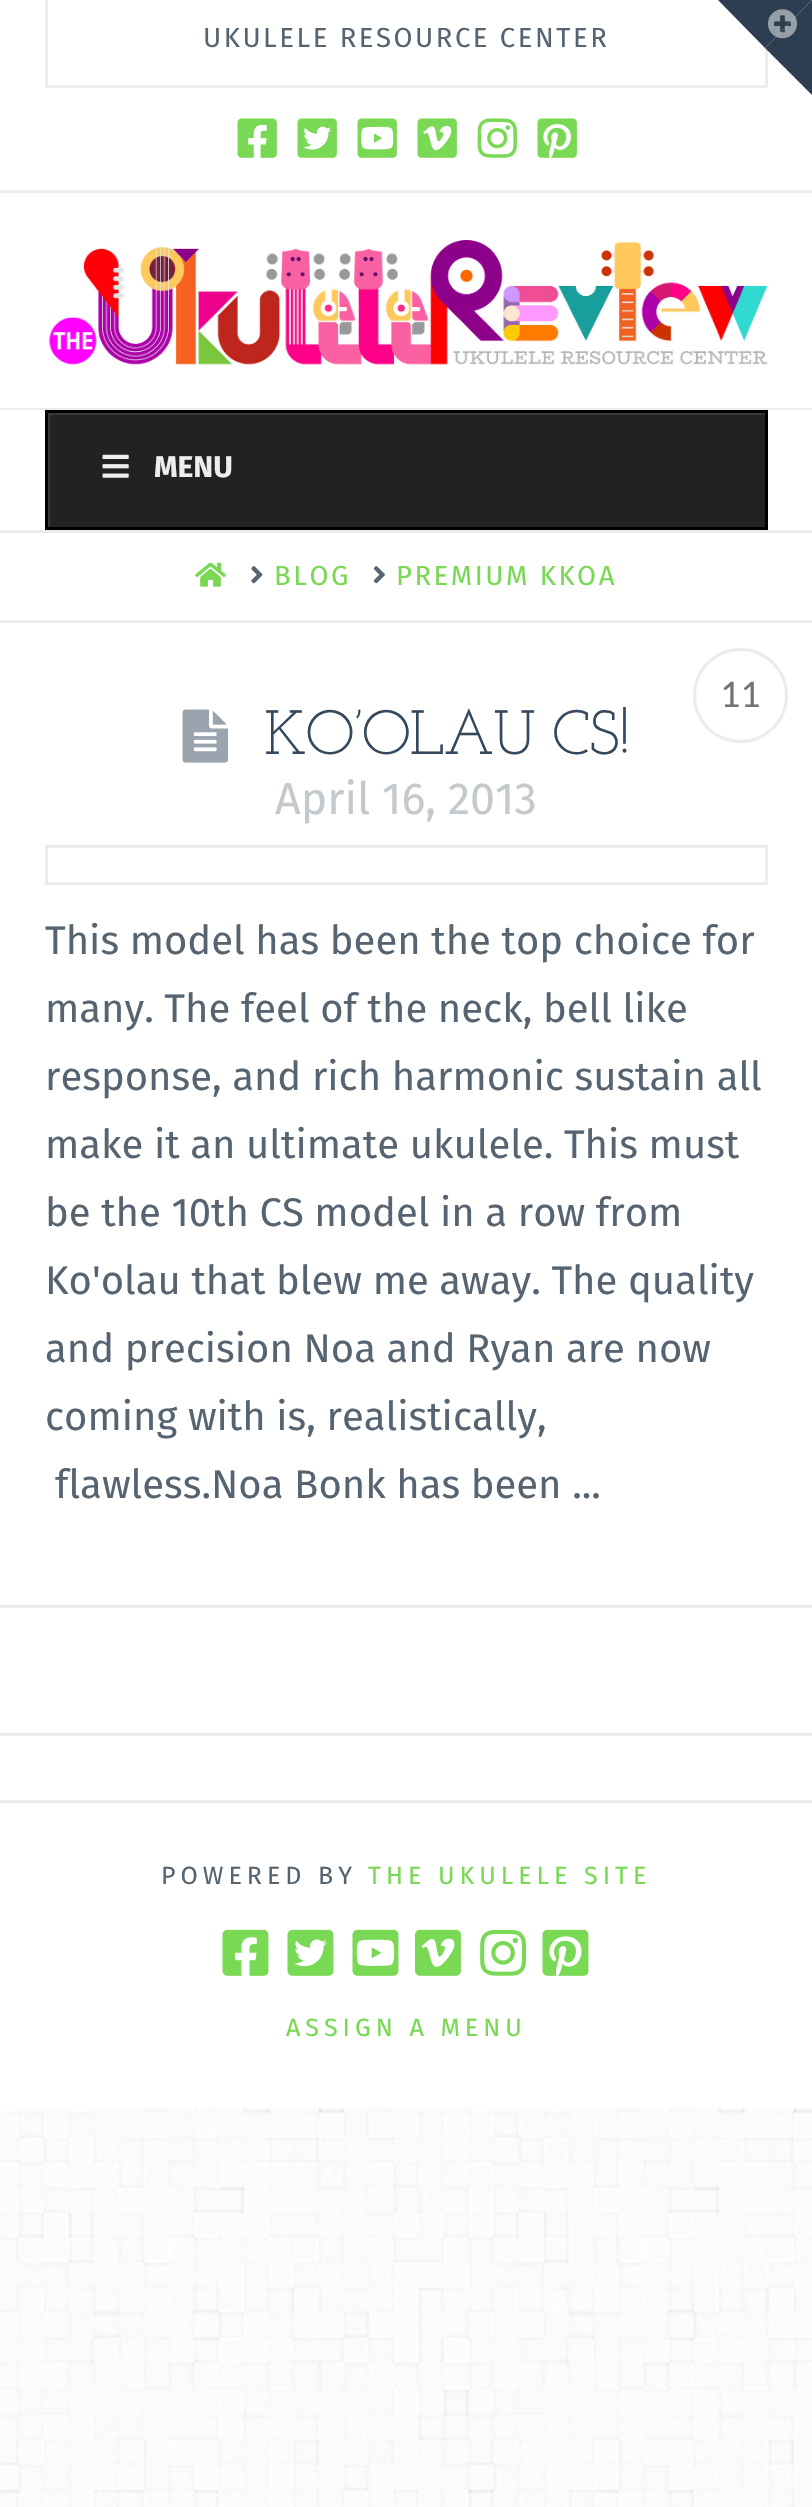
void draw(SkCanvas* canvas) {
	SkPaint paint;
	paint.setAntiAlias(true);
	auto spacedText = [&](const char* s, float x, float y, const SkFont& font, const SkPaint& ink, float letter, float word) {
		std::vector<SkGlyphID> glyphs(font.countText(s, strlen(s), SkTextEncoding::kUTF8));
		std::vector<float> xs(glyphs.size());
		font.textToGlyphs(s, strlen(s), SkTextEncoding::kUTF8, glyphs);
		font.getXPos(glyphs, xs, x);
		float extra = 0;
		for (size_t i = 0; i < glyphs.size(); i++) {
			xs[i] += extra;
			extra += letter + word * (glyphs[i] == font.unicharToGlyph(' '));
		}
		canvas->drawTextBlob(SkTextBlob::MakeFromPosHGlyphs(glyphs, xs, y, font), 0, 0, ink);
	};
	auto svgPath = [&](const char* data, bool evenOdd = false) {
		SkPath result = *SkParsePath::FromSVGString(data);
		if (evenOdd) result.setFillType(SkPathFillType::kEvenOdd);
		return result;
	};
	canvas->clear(0xffffffff);
	canvas->drawImageRect(SkImages::DeferredFromEncodedData(SkData::MakeFromFileName("img1.png")), SkRect::MakeXYWH(0, 2108, 812, 399), SkSamplingOptions());
	paint.setColor(0xffececec);
	canvas->drawRect(SkRect::MakeXYWH(0, 190, 812, 3), paint);
	canvas->drawPath(svgPath("M768 0V88L765 85V0Z"), paint);
	paint.setColor(0x12000000);
	canvas->drawPath(svgPath("M768 88H45L48 85H765Z"), paint);
	canvas->drawPath(svgPath("M45 88V0H48V85Z"), paint);
	SkFont f1(fontMgr->matchFamilyStyle("Fira Sans", SkFontStyle::Normal()), 27.5);
	f1.setSubpixel(true);
	paint.setColor(0xff566471);
	spacedText("UKULELE RESOURCE CENTER", 203, 47, f1, paint, 2.5, 0);
	canvas->drawImageRect(SkImages::DeferredFromEncodedData(SkData::MakeFromFileName("img2.png")), SkRect::MakeXYWH(237, 118, 40, 40), SkSamplingOptions());
	canvas->drawImageRect(SkImages::DeferredFromEncodedData(SkData::MakeFromFileName("img3.png")), SkRect::MakeXYWH(297, 118, 40, 40), SkSamplingOptions());
	canvas->drawImageRect(SkImages::DeferredFromEncodedData(SkData::MakeFromFileName("img4.png")), SkRect::MakeXYWH(357, 118, 40, 40), SkSamplingOptions());
	canvas->drawImageRect(SkImages::DeferredFromEncodedData(SkData::MakeFromFileName("img5.png")), SkRect::MakeXYWH(417, 118, 40, 40), SkSamplingOptions());
	canvas->drawImageRect(SkImages::DeferredFromEncodedData(SkData::MakeFromFileName("img6.png")), SkRect::MakeXYWH(477, 118, 40, 40), SkSamplingOptions());
	canvas->drawImageRect(SkImages::DeferredFromEncodedData(SkData::MakeFromFileName("img7.png")), SkRect::MakeXYWH(537, 118, 40, 40), SkSamplingOptions());
	paint.setColor(0xffececec);
	canvas->drawRect(SkRect::MakeXYWH(0, 408, 812, 2), paint);
	canvas->drawImageRect(SkImages::DeferredFromEncodedData(SkData::MakeFromFileName("img8.png")), SkRect::MakeXYWH(48, 240, 720, 126), SkSamplingOptions());
	canvas->drawRect(SkRect::MakeXYWH(0, 530, 812, 3), paint);
	paint.setColor(0xff222222);
	canvas->drawRect(SkRect::MakeXYWH(50, 415, 715, 112), paint);
	canvas->save();
	canvas->clipRect(SkRect::MakeXYWH(48, 413, 717, 115));
	paint.setColor(0xff383838);
	canvas->drawPath(svgPath("M-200 165H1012V775H-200ZM50 415H768V530H50Z", true), paint);
	canvas->restore();
	paint.setStroke(true);
	paint.setStrokeWidth(3);
	paint.setColor(0xff000000);
	canvas->drawRect(SkRect::MakeXYWH(46.5, 411.5, 720, 117), paint);
	canvas->drawImageRect(SkImages::DeferredFromEncodedData(SkData::MakeFromFileName("img9.png")), SkRect::MakeXYWH(102, 454, 27, 24), SkSamplingOptions());
	SkFont f2(fontMgr->matchFamilyStyle("Fira Sans", SkFontStyle::Bold()), 30);
	f2.setSubpixel(true);
	paint.setStroke(false);
	paint.setColor(0xffeeeeee);
	canvas->drawString("MENU", 154, 477, f2, paint);
	paint.setColor(0xffececec);
	canvas->drawRect(SkRect::MakeXYWH(0, 620, 812, 3), paint);
	canvas->drawImageRect(SkImages::DeferredFromEncodedData(SkData::MakeFromFileName("img10.png")), SkRect::MakeXYWH(195, 562, 31, 25), SkSamplingOptions());
	canvas->drawImageRect(SkImages::DeferredFromEncodedData(SkData::MakeFromFileName("img11.png")), SkRect::MakeXYWH(251, 566, 12, 18), SkSamplingOptions());
	paint.setColor(0xff79d854);
	spacedText("BLOG", 274, 585, f1, paint, 2.5, 0);
	canvas->drawImageRect(SkImages::DeferredFromEncodedData(SkData::MakeFromFileName("img12.png")), SkRect::MakeXYWH(373, 566, 12, 18), SkSamplingOptions());
	spacedText("PREMIUM KKOA", 396, 585, f1, paint, 2.5, 0);
	paint.setColor(0xffececec);
	canvas->drawRect(SkRect::MakeXYWH(0, 1605, 812, 3), paint);
	paint.setStroke(true);
	canvas->drawCircle(740.5, 695.5, 46, paint);
	SkFont f3(fontMgr->matchFamilyStyle("Lato", SkFontStyle::Normal()), 35);
	f3.setSubpixel(true);
	paint.setStroke(false);
	paint.setColor(0xff737373);
	canvas->drawString("11", 720, 707, f3, paint);
	canvas->drawImageRect(SkImages::DeferredFromEncodedData(SkData::MakeFromFileName("img13.png")), SkRect::MakeXYWH(182, 709, 46, 54), SkSamplingOptions());
	SkFont f4(fontMgr->matchFamilyStyle("Josefin Slab", SkFontStyle(100, SkFontStyle::kNormal_Width, SkFontStyle::kUpright_Slant)), 62.5);
	f4.setSubpixel(true);
	paint.setColor(0xff34495e);
	spacedText("KO’OLAU CS!", 264, 754, f4, paint, -1.5, 0);
	SkFont f5(fontMgr->matchFamilyStyle("Fira Sans", SkFontStyle::Normal()), 44.75);
	f5.setSubpixel(true);
	paint.setColor(0xffc4c9cd);
	canvas->drawString("April 16, 2013", 275, 814, f5, paint);
	paint.setStroke(true);
	paint.setColor(0xffececec);
	canvas->drawRect(SkRect::MakeXYWH(46.5, 846.5, 720, 37), paint);
	SkFont f6(fontMgr->matchFamilyStyle("Fira Sans", SkFontStyle::Normal()), 40);
	f6.setSubpixel(true);
	paint.setStroke(false);
	paint.setColor(0xff566471);
	canvas->drawString("This model has been the top choice for", 45, 954, f6, paint);
	canvas->drawString("many. The feel of the neck, bell like", 45, 1022, f6, paint);
	canvas->drawString("response, and rich harmonic sustain all", 45, 1090, f6, paint);
	canvas->drawString("make it an ultimate ukulele. This must", 45, 1158, f6, paint);
	canvas->drawString("be the 10th CS model in a row from", 45, 1226, f6, paint);
	canvas->drawString("Ko'olau that blew me away. The quality", 45, 1294, f6, paint);
	canvas->drawString("and precision Noa and Ryan are now", 45, 1362, f6, paint);
	canvas->drawString("coming with is, realistically,", 45, 1430, f6, paint);
	canvas->drawString("flawless.Noa Bonk has been ...", 55, 1498, f6, paint);
	paint.setColor(0xffececec);
	canvas->drawRect(SkRect::MakeXYWH(0, 1733, 812, 3), paint);
	canvas->drawRect(SkRect::MakeXYWH(0, 1800, 812, 3), paint);
	SkFont f7(fontMgr->matchFamilyStyle("Fira Sans", SkFontStyle::Normal()), 25);
	f7.setSubpixel(true);
	paint.setColor(0xff566471);
	spacedText("POWERED BY", 161, 1884, f7, paint, 5, 0);
	paint.setColor(0xff79d854);
	spacedText("THE UKULELE SITE", 368, 1884, f7, paint, 5, 0);
	canvas->drawImageRect(SkImages::DeferredFromEncodedData(SkData::MakeFromFileName("img14.png")), SkRect::MakeXYWH(222, 1929, 47, 47), SkSamplingOptions());
	canvas->drawImageRect(SkImages::DeferredFromEncodedData(SkData::MakeFromFileName("img15.png")), SkRect::MakeXYWH(287, 1929, 47, 47), SkSamplingOptions());
	canvas->drawImageRect(SkImages::DeferredFromEncodedData(SkData::MakeFromFileName("img16.png")), SkRect::MakeXYWH(352, 1929, 47, 47), SkSamplingOptions());
	canvas->drawImageRect(SkImages::DeferredFromEncodedData(SkData::MakeFromFileName("img17.png")), SkRect::MakeXYWH(415, 1929, 46, 47), SkSamplingOptions());
	canvas->drawImageRect(SkImages::DeferredFromEncodedData(SkData::MakeFromFileName("img18.png")), SkRect::MakeXYWH(480, 1929, 47, 47), SkSamplingOptions());
	canvas->drawImageRect(SkImages::DeferredFromEncodedData(SkData::MakeFromFileName("img19.png")), SkRect::MakeXYWH(542, 1929, 47, 47), SkSamplingOptions());
	spacedText("ASSIGN A MENU", 286, 2036, f7, paint, 5, 0);
	paint.setColor(0xff2c3e50);
	canvas->drawPath(svgPath("M718 0H812L765 48Z"), paint);
	canvas->drawPath(svgPath("M812 0V95L765 48Z"), paint);
	canvas->drawImageRect(SkImages::DeferredFromEncodedData(SkData::MakeFromFileName("img20.png")), SkRect::MakeXYWH(768, 9, 29, 30), SkSamplingOptions());
}
